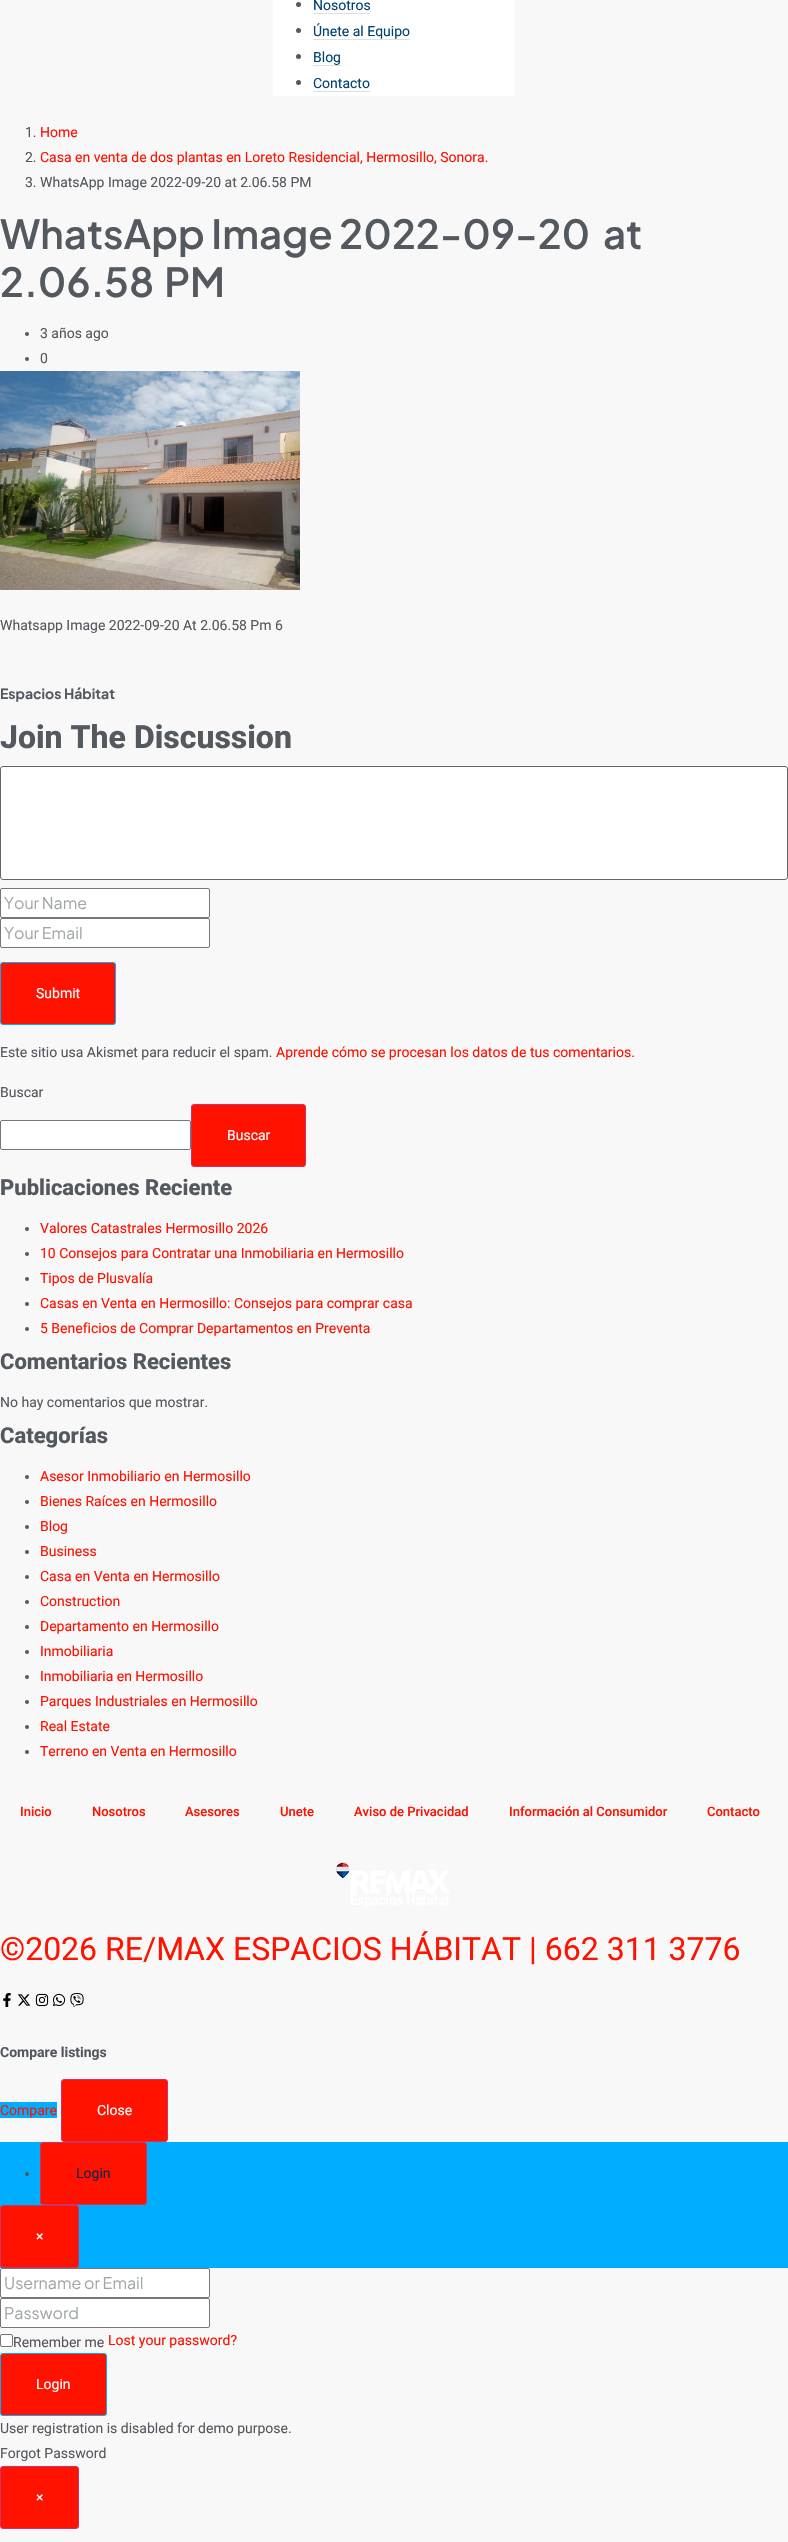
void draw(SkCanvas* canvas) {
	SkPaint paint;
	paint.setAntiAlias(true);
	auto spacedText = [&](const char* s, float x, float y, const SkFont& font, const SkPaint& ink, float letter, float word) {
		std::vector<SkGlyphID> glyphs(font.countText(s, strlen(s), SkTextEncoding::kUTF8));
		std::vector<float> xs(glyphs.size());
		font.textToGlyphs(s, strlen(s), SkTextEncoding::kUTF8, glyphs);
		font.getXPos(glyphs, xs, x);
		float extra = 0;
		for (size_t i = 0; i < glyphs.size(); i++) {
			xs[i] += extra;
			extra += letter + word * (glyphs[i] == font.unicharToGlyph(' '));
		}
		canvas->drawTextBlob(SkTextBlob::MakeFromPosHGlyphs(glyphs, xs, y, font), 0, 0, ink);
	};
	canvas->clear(0xfff8f8f8);
	paint.setColor(0xffffffff);
	canvas->drawRect(SkRect::MakeXYWH(273, 0, 242, 96), paint);
	paint.setColor(0xff54595f);
	canvas->drawCircle(298.5, 4.5, 2.5, paint);
	SkFont f1(fontMgr->matchFamilyStyle("Roboto", SkFontStyle::Normal()), 14);
	f1.setSubpixel(true);
	paint.setColor(0xff004274);
	canvas->drawString("Nosotros", 313, 10, f1, paint);
	paint.setColor(0xffdce0e0);
	canvas->drawRect(SkRect::MakeXYWH(313, 13, 57, 1), paint);
	paint.setColor(0xff54595f);
	canvas->drawCircle(298.5, 30.5, 2.5, paint);
	paint.setColor(0xff004274);
	canvas->drawString("Únete al Equipo", 313, 36, f1, paint);
	paint.setColor(0xffdce0e0);
	canvas->drawRect(SkRect::MakeXYWH(313, 39, 97, 1), paint);
	paint.setColor(0xff54595f);
	canvas->drawCircle(298.5, 56.5, 2.5, paint);
	paint.setColor(0xff004274);
	canvas->drawString("Blog", 313, 62, f1, paint);
	paint.setColor(0xffdce0e0);
	canvas->drawRect(SkRect::MakeXYWH(313, 65, 28, 1), paint);
	paint.setColor(0xff54595f);
	canvas->drawCircle(298.5, 82.5, 2.5, paint);
	paint.setColor(0xff004274);
	canvas->drawString("Contacto", 313, 88, f1, paint);
	paint.setColor(0xffdce0e0);
	canvas->drawRect(SkRect::MakeXYWH(313, 91, 57, 1), paint);
	paint.setColor(0xff54595f);
	canvas->drawString("1.", 25, 137, f1, paint);
	paint.setColor(0xffff1200);
	canvas->drawString("Home", 40, 137, f1, paint);
	paint.setColor(0xff54595f);
	canvas->drawString("2.", 25, 162, f1, paint);
	paint.setColor(0xffff1200);
	canvas->drawString("Casa en venta de dos plantas en Loreto Residencial, Hermosillo, Sonora.", 40, 162, f1, paint);
	paint.setColor(0xff54595f);
	canvas->drawString("3. WhatsApp Image 2022-09-20 at 2.06.58 PM", 25, 187, f1, paint);
	SkFont f2(fontMgr->matchFamilyStyle("Plus Jakarta Sans", SkFontStyle(600, SkFontStyle::kNormal_Width, SkFontStyle::kUpright_Slant)), 40);
	f2.setSubpixel(true);
	spacedText("WhatsApp Image 2022-09-20", 0, 249, f2, paint, 0, -0.5);
	spacedText("at", 603, 249, f2, paint, 0, -0.5);
	spacedText("2.06.58 PM", 0, 297, f2, paint, 0, 3);
	canvas->drawCircle(27, 334, 2, paint);
	canvas->drawString("3 años ago", 40, 338, f1, paint);
	canvas->drawCircle(27, 359, 2, paint);
	canvas->drawString("0", 40, 363, f1, paint);
	canvas->drawImageRect(SkImages::DeferredFromEncodedData(SkData::MakeFromFileName("img1.png")), SkRect::MakeXYWH(0, 371, 300, 219), SkSamplingOptions());
	canvas->drawString("Whatsapp Image 2022-09-20 At 2.06.58 Pm 6", 0, 630, f1, paint);
	SkFont f3(fontMgr->matchFamilyStyle("Plus Jakarta Sans", SkFontStyle::Bold()), 14);
	f3.setSubpixel(true);
	canvas->drawString("Espacios Hábitat", 0, 699, f3, paint);
	SkFont f4(fontMgr->matchFamilyStyle("Roboto", SkFontStyle(800, SkFontStyle::kNormal_Width, SkFontStyle::kUpright_Slant)), 32);
	f4.setSubpixel(true);
	canvas->drawString("Join The Discussion", 0, 748, f4, paint);
	paint.setColor(0xffffffff);
	canvas->drawRoundRect(SkRect::MakeXYWH(0.5, 766.5, 787, 113), 2.5, 2.5, paint);
	paint.setStroke(true);
	paint.setStrokeWidth(1);
	paint.setColor(0xff666666);
	canvas->drawRoundRect(SkRect::MakeXYWH(0.5, 766.5, 787, 113), 2.5, 2.5, paint);
	paint.setStroke(false);
	paint.setColor(0xffffffff);
	canvas->drawRoundRect(SkRect::MakeXYWH(0.5, 888.5, 209, 29), 1.5, 1.5, paint);
	paint.setStroke(true);
	paint.setColor(0xff767676);
	canvas->drawRoundRect(SkRect::MakeXYWH(0.5, 888.5, 209, 29), 1.5, 1.5, paint);
	SkFont f5(fontMgr->matchFamilyStyle("Plus Jakarta Sans", SkFontStyle::Normal()), 16);
	f5.setSubpixel(true);
	paint.setStroke(false);
	paint.setColor(0xffa1a7a8);
	canvas->drawString("Your Name", 4, 909, f5, paint);
	paint.setColor(0xffffffff);
	canvas->drawRoundRect(SkRect::MakeXYWH(0.5, 918.5, 209, 29), 1.5, 1.5, paint);
	paint.setStroke(true);
	paint.setColor(0xff767676);
	canvas->drawRoundRect(SkRect::MakeXYWH(0.5, 918.5, 209, 29), 1.5, 1.5, paint);
	paint.setStroke(false);
	paint.setColor(0xffa1a7a8);
	canvas->drawString("Your Email", 4, 939, f5, paint);
	paint.setColor(0xffff1200);
	canvas->drawRoundRect(SkRect::MakeXYWH(0.5, 962.5, 115, 62), 2.5, 2.5, paint);
	paint.setStroke(true);
	paint.setColor(0xff00aeff);
	canvas->drawRoundRect(SkRect::MakeXYWH(0.5, 962.5, 115, 62), 2.5, 2.5, paint);
	paint.setStroke(false);
	paint.setColor(0xffffffff);
	canvas->drawString("Submit", 36, 998, f1, paint);
	paint.setColor(0xff54595f);
	canvas->drawString("Este sitio usa Akismet para reducir el spam.", 0, 1057, f1, paint);
	paint.setColor(0xffff1200);
	canvas->drawString("Aprende cómo se procesan los datos de tus comentarios.", 276, 1057, f1, paint);
	paint.setColor(0xff54595f);
	canvas->drawString("Buscar", 0, 1097, f1, paint);
	paint.setColor(0xffffffff);
	canvas->drawRoundRect(SkRect::MakeXYWH(0.5, 1120.5, 190, 29), 1.5, 1.5, paint);
	paint.setStroke(true);
	paint.setColor(0xff767676);
	canvas->drawRoundRect(SkRect::MakeXYWH(0.5, 1120.5, 190, 29), 1.5, 1.5, paint);
	paint.setStroke(false);
	paint.setColor(0xffff1200);
	canvas->drawRoundRect(SkRect::MakeXYWH(191.5, 1104.5, 114, 62), 2.5, 2.5, paint);
	paint.setStroke(true);
	paint.setColor(0xffcc3366);
	canvas->drawRoundRect(SkRect::MakeXYWH(191.5, 1104.5, 114, 62), 2.5, 2.5, paint);
	paint.setStroke(false);
	paint.setColor(0xffffffff);
	canvas->drawString("Buscar", 227, 1140, f1, paint);
	SkFont f6(fontMgr->matchFamilyStyle("Roboto", SkFontStyle(800, SkFontStyle::kNormal_Width, SkFontStyle::kUpright_Slant)), 22);
	f6.setSubpixel(true);
	paint.setColor(0xff54595f);
	canvas->drawString("Publicaciones Reciente", 0, 1195, f6, paint);
	canvas->drawCircle(27, 1229, 2, paint);
	paint.setColor(0xffff1200);
	canvas->drawString("Valores Catastrales Hermosillo 2026", 40, 1233, f1, paint);
	paint.setColor(0xff54595f);
	canvas->drawCircle(27, 1254, 2, paint);
	paint.setColor(0xffff1200);
	canvas->drawString("10 Consejos para Contratar una Inmobiliaria en Hermosillo", 40, 1258, f1, paint);
	paint.setColor(0xff54595f);
	canvas->drawCircle(27, 1279, 2, paint);
	paint.setColor(0xffff1200);
	canvas->drawString("Tipos de Plusvalía", 40, 1283, f1, paint);
	paint.setColor(0xff54595f);
	canvas->drawCircle(27, 1304, 2, paint);
	paint.setColor(0xffff1200);
	canvas->drawString("Casas en Venta en Hermosillo: Consejos para comprar casa", 40, 1308, f1, paint);
	paint.setColor(0xff54595f);
	canvas->drawCircle(27, 1329, 2, paint);
	paint.setColor(0xffff1200);
	canvas->drawString("5 Beneficios de Comprar Departamentos en Preventa", 40, 1333, f1, paint);
	paint.setColor(0xff54595f);
	canvas->drawString("Comentarios Recientes", 0, 1369, f6, paint);
	canvas->drawString("No hay comentarios que mostrar.", 0, 1407, f1, paint);
	canvas->drawString("Categorías", 0, 1443, f6, paint);
	canvas->drawCircle(27, 1477, 2, paint);
	paint.setColor(0xffff1200);
	canvas->drawString("Asesor Inmobiliario en Hermosillo", 40, 1481, f1, paint);
	paint.setColor(0xff54595f);
	canvas->drawCircle(27, 1502, 2, paint);
	paint.setColor(0xffff1200);
	canvas->drawString("Bienes Raíces en Hermosillo", 40, 1506, f1, paint);
	paint.setColor(0xff54595f);
	canvas->drawCircle(27, 1527, 2, paint);
	paint.setColor(0xffff1200);
	canvas->drawString("Blog", 40, 1531, f1, paint);
	paint.setColor(0xff54595f);
	canvas->drawCircle(27, 1552, 2, paint);
	paint.setColor(0xffff1200);
	canvas->drawString("Business", 40, 1556, f1, paint);
	paint.setColor(0xff54595f);
	canvas->drawCircle(27, 1577, 2, paint);
	paint.setColor(0xffff1200);
	canvas->drawString("Casa en Venta en Hermosillo", 40, 1581, f1, paint);
	paint.setColor(0xff54595f);
	canvas->drawCircle(27, 1602, 2, paint);
	paint.setColor(0xffff1200);
	canvas->drawString("Construction", 40, 1606, f1, paint);
	paint.setColor(0xff54595f);
	canvas->drawCircle(27, 1627, 2, paint);
	paint.setColor(0xffff1200);
	canvas->drawString("Departamento en Hermosillo", 40, 1631, f1, paint);
	paint.setColor(0xff54595f);
	canvas->drawCircle(27, 1652, 2, paint);
	paint.setColor(0xffff1200);
	canvas->drawString("Inmobiliaria", 40, 1656, f1, paint);
	paint.setColor(0xff54595f);
	canvas->drawCircle(27, 1677, 2, paint);
	paint.setColor(0xffff1200);
	canvas->drawString("Inmobiliaria en Hermosillo", 40, 1681, f1, paint);
	paint.setColor(0xff54595f);
	canvas->drawCircle(27, 1702, 2, paint);
	paint.setColor(0xffff1200);
	canvas->drawString("Parques Industriales en Hermosillo", 40, 1706, f1, paint);
	paint.setColor(0xff54595f);
	canvas->drawCircle(27, 1727, 2, paint);
	paint.setColor(0xffff1200);
	canvas->drawString("Real Estate", 40, 1731, f1, paint);
	paint.setColor(0xff54595f);
	canvas->drawCircle(27, 1752, 2, paint);
	paint.setColor(0xffff1200);
	canvas->drawString("Terreno en Venta en Hermosillo", 40, 1756, f1, paint);
	SkFont f7(fontMgr->matchFamilyStyle("Roboto", SkFontStyle(500, SkFontStyle::kNormal_Width, SkFontStyle::kUpright_Slant)), 13);
	f7.setSubpixel(true);
	canvas->drawString("Inicio", 20, 1816, f7, paint);
	canvas->drawString("Nosotros", 92, 1816, f7, paint);
	canvas->drawString("Asesores", 185, 1816, f7, paint);
	canvas->drawString("Unete", 280, 1816, f7, paint);
	canvas->drawString("Aviso de Privacidad", 354, 1816, f7, paint);
	canvas->drawString("Información al Consumidor", 509, 1816, f7, paint);
	canvas->drawString("Contacto", 707, 1816, f7, paint);
	canvas->drawImageRect(SkImages::DeferredFromEncodedData(SkData::MakeFromFileName("img2.png")), SkRect::MakeXYWH(335, 1862, 115, 46), SkSamplingOptions());
	SkFont f8(fontMgr->matchFamilyStyle("Roboto", SkFontStyle::Normal()), 32);
	f8.setSubpixel(true);
	canvas->drawString("©2026 RE/MAX ESPACIOS HÁBITAT | 662 311 3776", 0, 1960, f8, paint);
	canvas->drawImageRect(SkImages::DeferredFromEncodedData(SkData::MakeFromFileName("img3.png")), SkRect::MakeXYWH(3, 1993, 8, 14), SkSamplingOptions());
	canvas->drawImageRect(SkImages::DeferredFromEncodedData(SkData::MakeFromFileName("img4.png")), SkRect::MakeXYWH(17, 1994, 14, 12), SkSamplingOptions());
	canvas->drawImageRect(SkImages::DeferredFromEncodedData(SkData::MakeFromFileName("img5.png")), SkRect::MakeXYWH(35, 1993, 14, 14), SkSamplingOptions());
	canvas->drawImageRect(SkImages::DeferredFromEncodedData(SkData::MakeFromFileName("img6.png")), SkRect::MakeXYWH(52, 1993, 14, 13), SkSamplingOptions());
	canvas->drawImageRect(SkImages::DeferredFromEncodedData(SkData::MakeFromFileName("img7.png")), SkRect::MakeXYWH(70, 1993, 14, 14), SkSamplingOptions());
	SkFont f9(fontMgr->matchFamilyStyle("Roboto", SkFontStyle::Bold()), 14);
	f9.setSubpixel(true);
	paint.setColor(0xff54595f);
	canvas->drawString("Compare listings", 0, 2057, f9, paint);
	paint.setColor(0xff00aeff);
	canvas->drawRect(SkRect::MakeXYWH(0, 2102, 57, 16), paint);
	paint.setColor(0xffff1200);
	canvas->drawString("Compare", 0, 2115, f1, paint);
	canvas->drawRoundRect(SkRect::MakeXYWH(61.5, 2079.5, 106, 62), 2.5, 2.5, paint);
	paint.setStroke(true);
	paint.setColor(0xffcc3366);
	canvas->drawRoundRect(SkRect::MakeXYWH(61.5, 2079.5, 106, 62), 2.5, 2.5, paint);
	paint.setStroke(false);
	paint.setColor(0xffffffff);
	canvas->drawString("Close", 97, 2115, f1, paint);
	paint.setColor(0xff00aeff);
	canvas->drawRect(SkRect::MakeXYWH(0, 2142, 788, 126), paint);
	paint.setColor(0xff54595f);
	canvas->drawCircle(27, 2174, 2, paint);
	paint.setColor(0xffff1200);
	canvas->drawRoundRect(SkRect::MakeXYWH(40.5, 2142.5, 106, 62), 2.5, 2.5, paint);
	paint.setStroke(true);
	paint.setColor(0xffcc3366);
	canvas->drawRoundRect(SkRect::MakeXYWH(40.5, 2142.5, 106, 62), 2.5, 2.5, paint);
	paint.setStroke(false);
	paint.setColor(0xff0c2749);
	canvas->drawString("Login", 76, 2178, f1, paint);
	paint.setColor(0xffff1200);
	canvas->drawRoundRect(SkRect::MakeXYWH(0.5, 2205.5, 78, 62), 2.5, 2.5, paint);
	paint.setStroke(true);
	paint.setColor(0xffcc3366);
	canvas->drawRoundRect(SkRect::MakeXYWH(0.5, 2205.5, 78, 62), 2.5, 2.5, paint);
	paint.setStroke(false);
	paint.setColor(0xffffffff);
	canvas->drawString("×", 36, 2241, f1, paint);
	canvas->drawRoundRect(SkRect::MakeXYWH(0.5, 2268.5, 209, 29), 1.5, 1.5, paint);
	paint.setStroke(true);
	paint.setColor(0xff767676);
	canvas->drawRoundRect(SkRect::MakeXYWH(0.5, 2268.5, 209, 29), 1.5, 1.5, paint);
	paint.setStroke(false);
	paint.setColor(0xffa1a7a8);
	canvas->drawString("Username or Email", 4, 2289, f5, paint);
	paint.setColor(0xffffffff);
	canvas->drawRoundRect(SkRect::MakeXYWH(0.5, 2298.5, 209, 29), 1.5, 1.5, paint);
	paint.setStroke(true);
	paint.setColor(0xff767676);
	canvas->drawRoundRect(SkRect::MakeXYWH(0.5, 2298.5, 209, 29), 1.5, 1.5, paint);
	paint.setStroke(false);
	paint.setColor(0xffa1a7a8);
	canvas->drawString("Password", 4, 2319, f5, paint);
	paint.setColor(0xffffffff);
	canvas->drawRoundRect(SkRect::MakeXYWH(0.5, 2334.5, 12, 12), 1.5, 1.5, paint);
	paint.setStroke(true);
	paint.setColor(0xff767676);
	canvas->drawRoundRect(SkRect::MakeXYWH(0.5, 2334.5, 12, 12), 1.5, 1.5, paint);
	paint.setStroke(false);
	paint.setColor(0xff54595f);
	canvas->drawString("Remember me", 13, 2347, f1, paint);
	paint.setColor(0xffff1200);
	canvas->drawString("Lost your password?", 108, 2345, f1, paint);
	canvas->drawRoundRect(SkRect::MakeXYWH(0.5, 2353.5, 106, 62), 2.5, 2.5, paint);
	paint.setStroke(true);
	paint.setColor(0xff00aeff);
	canvas->drawRoundRect(SkRect::MakeXYWH(0.5, 2353.5, 106, 62), 2.5, 2.5, paint);
	paint.setStroke(false);
	paint.setColor(0xffffffff);
	canvas->drawString("Login", 36, 2389, f1, paint);
	paint.setColor(0xff54595f);
	canvas->drawString("User registration is disabled for demo purpose.", 0, 2433, f1, paint);
	canvas->drawString("Forgot Password", 0, 2458, f1, paint);
	paint.setColor(0xffff1200);
	canvas->drawRoundRect(SkRect::MakeXYWH(0.5, 2466.5, 78, 62), 2.5, 2.5, paint);
	paint.setStroke(true);
	paint.setColor(0xffcc3366);
	canvas->drawRoundRect(SkRect::MakeXYWH(0.5, 2466.5, 78, 62), 2.5, 2.5, paint);
	paint.setStroke(false);
	paint.setColor(0xffffffff);
	canvas->drawString("×", 36, 2502, f1, paint);
}
